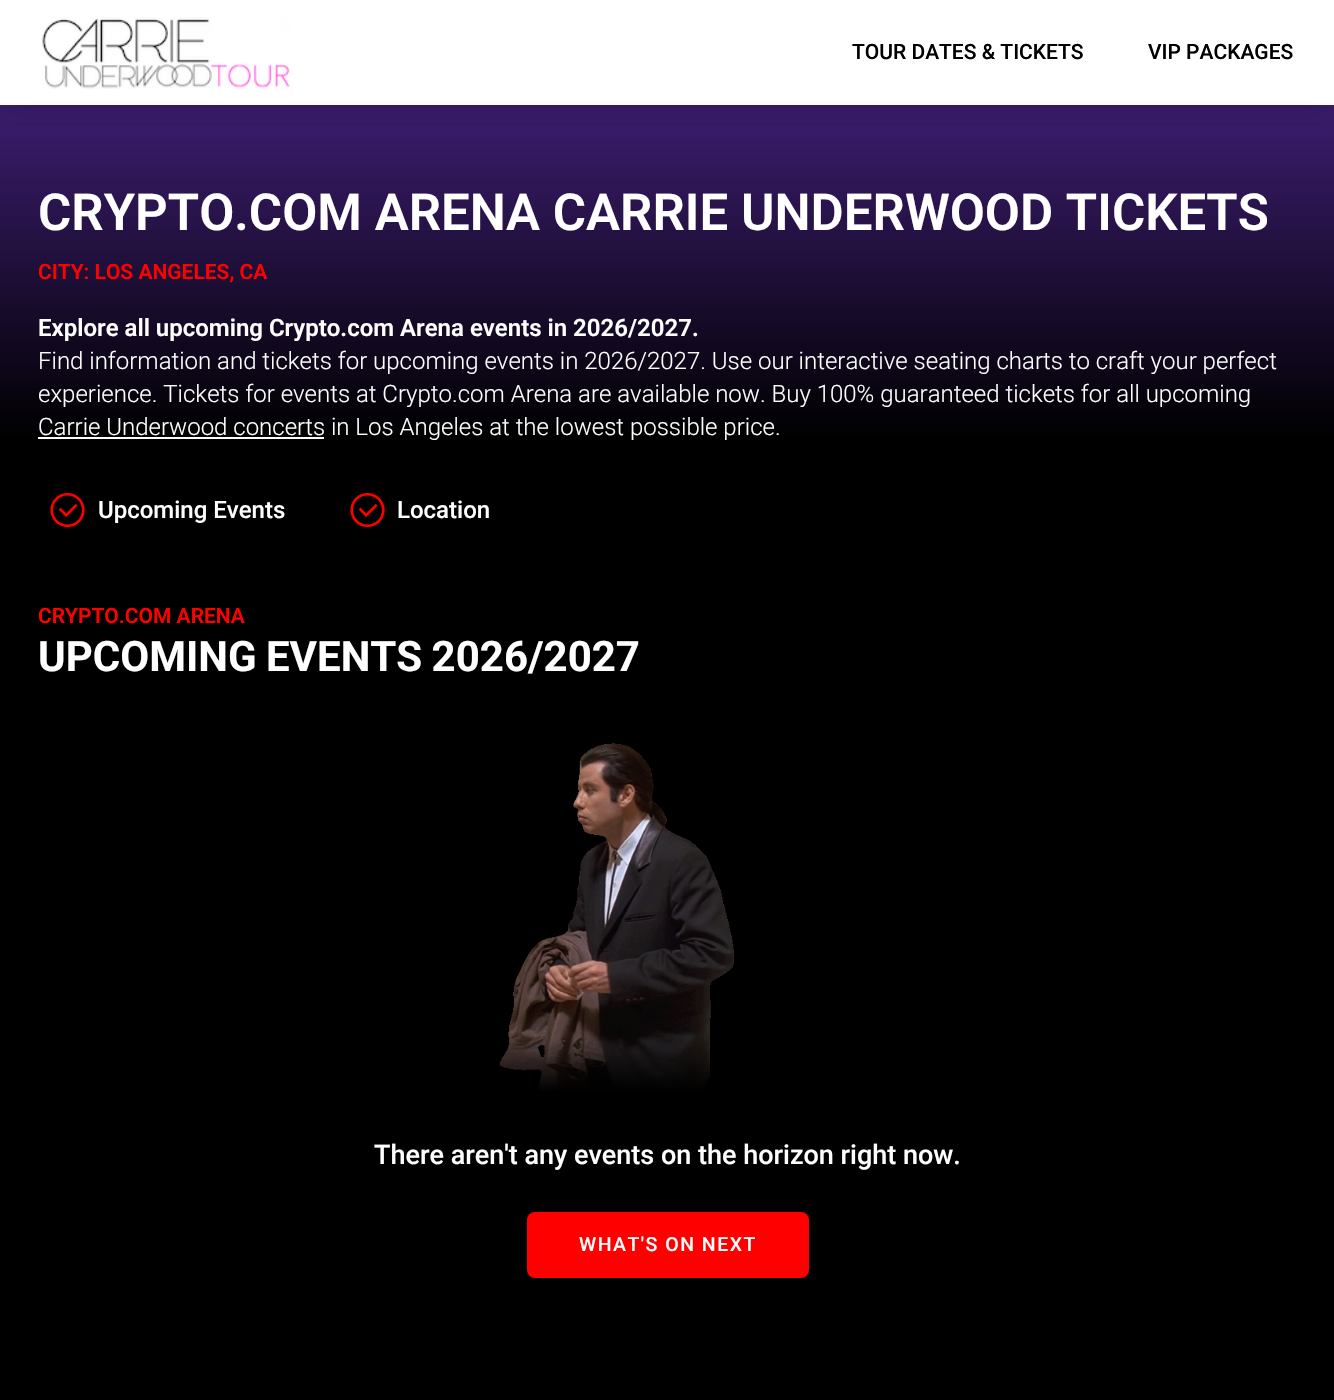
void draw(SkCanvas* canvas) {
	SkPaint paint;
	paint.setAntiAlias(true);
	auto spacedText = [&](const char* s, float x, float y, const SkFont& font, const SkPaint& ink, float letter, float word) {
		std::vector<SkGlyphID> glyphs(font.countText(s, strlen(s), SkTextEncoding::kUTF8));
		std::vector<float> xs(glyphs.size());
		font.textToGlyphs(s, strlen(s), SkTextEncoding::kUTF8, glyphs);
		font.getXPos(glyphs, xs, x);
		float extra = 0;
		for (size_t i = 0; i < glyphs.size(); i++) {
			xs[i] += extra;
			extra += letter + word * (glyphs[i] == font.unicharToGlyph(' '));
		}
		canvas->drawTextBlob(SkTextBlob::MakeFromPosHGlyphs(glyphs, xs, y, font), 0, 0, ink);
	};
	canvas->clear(0xffffffff);
	{
		const SkColor colors[] = {0xff3c1d6f, 0xff000000};
		const float stops[] = {0, 0.73};
		const SkPoint ends[] = {{668, 105}, {668, 563}};
		paint.setShader(SkGradientShader::MakeLinear(ends, colors, stops, 2, SkTileMode::kClamp));
		paint.setAlpha(255);
	}
	canvas->drawRect(SkRect::MakeXYWH(0, 105, 1334, 458), paint);
	canvas->save();
	canvas->clipRect(SkRect::MakeXYWH(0, 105, 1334, 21));
	paint.setShader(nullptr);
	paint.setColor(0x42000000);
	paint.setMaskFilter(SkMaskFilter::MakeBlur(kNormal_SkBlurStyle, 15));
	canvas->drawRect(SkRect::MakeXYWH(0, 0, 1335, 105), paint);
	paint.setMaskFilter(nullptr);
	canvas->restore();
	canvas->drawImageRect(SkImages::DeferredFromEncodedData(SkData::MakeFromFileName("img1.png")), SkRect::MakeXYWH(42, 17, 248, 72), SkSamplingOptions());
	SkFont f1(fontMgr->matchFamilyStyle("Roboto", SkFontStyle(500, SkFontStyle::kNormal_Width, SkFontStyle::kUpright_Slant)), 21);
	f1.setSubpixel(true);
	paint.setColor(0xff000000);
	canvas->drawString("TOUR DATES & TICKETS", 852, 59, f1, paint);
	canvas->drawString("VIP PACKAGES", 1148, 59, f1, paint);
	canvas->drawRect(SkRect::MakeXYWH(0, 563, 1334, 837), paint);
	SkFont f2(fontMgr->matchFamilyStyle("Roboto", SkFontStyle(600, SkFontStyle::kNormal_Width, SkFontStyle::kUpright_Slant)), 51);
	f2.setSubpixel(true);
	paint.setColor(0xffffffff);
	canvas->drawString("CRYPTO.COM ARENA CARRIE UNDERWOOD TICKETS", 38, 230, f2, paint);
	SkFont f3(fontMgr->matchFamilyStyle("Roboto", SkFontStyle(600, SkFontStyle::kNormal_Width, SkFontStyle::kUpright_Slant)), 21);
	f3.setSubpixel(true);
	paint.setColor(0xffff0000);
	canvas->drawString("CITY: LOS ANGELES, CA", 38, 279, f3, paint);
	SkFont f4(fontMgr->matchFamilyStyle("Roboto", SkFontStyle(600, SkFontStyle::kNormal_Width, SkFontStyle::kUpright_Slant)), 24);
	f4.setSubpixel(true);
	paint.setColor(0xffffffff);
	canvas->drawString("Explore all upcoming Crypto.com Arena events in 2026/2027.", 38, 336, f4, paint);
	SkFont f5(fontMgr->matchFamilyStyle("Roboto", SkFontStyle(300, SkFontStyle::kNormal_Width, SkFontStyle::kUpright_Slant)), 24);
	f5.setSubpixel(true);
	canvas->drawString("Find information and tickets for upcoming events in 2026/2027. Use our interactive seating charts to craft your perfect", 38, 369, f5, paint);
	canvas->drawString("experience. Tickets for events at Crypto.com Arena are available now. Buy 100% guaranteed tickets for all upcoming", 38, 402, f5, paint);
	canvas->drawRect(SkRect::MakeXYWH(38, 437, 286, 2), paint);
	canvas->drawString("Carrie Underwood concerts in Los Angeles at the lowest possible price.", 38, 435, f5, paint);
	canvas->drawImageRect(SkImages::DeferredFromEncodedData(SkData::MakeFromFileName("img2.png")), SkRect::MakeXYWH(50, 493, 35, 34), SkSamplingOptions());
	SkFont f6(fontMgr->matchFamilyStyle("Roboto", SkFontStyle(500, SkFontStyle::kNormal_Width, SkFontStyle::kUpright_Slant)), 24);
	f6.setSubpixel(true);
	canvas->drawString("Upcoming Events", 98, 518, f6, paint);
	canvas->drawImageRect(SkImages::DeferredFromEncodedData(SkData::MakeFromFileName("img3.png")), SkRect::MakeXYWH(350, 493, 35, 34), SkSamplingOptions());
	canvas->drawString("Location", 397, 518, f6, paint);
	paint.setColor(0xffff0000);
	canvas->drawString("CRYPTO.COM ARENA", 38, 623, f3, paint);
	SkFont f7(fontMgr->matchFamilyStyle("Roboto", SkFontStyle::Bold()), 42);
	f7.setSubpixel(true);
	paint.setColor(0xffffffff);
	spacedText("UPCOMING EVENTS 2026/2027", 38, 671, f7, paint, 0, -1);
	canvas->drawImageRect(SkImages::DeferredFromEncodedData(SkData::MakeFromFileName("img4.png")), SkRect::MakeXYWH(499, 743, 235, 348), SkSamplingOptions());
	{
		const SkColor colors[] = {0x00000000, 0xff000000};
		const float stops[] = {0, 0.73};
		const SkPoint ends[] = {{668, 1037}, {668, 1112}};
		paint.setShader(SkGradientShader::MakeLinear(ends, colors, stops, 2, SkTileMode::kClamp));
		paint.setAlpha(255);
	}
	canvas->drawRect(SkRect::MakeXYWH(500, 1038, 210, 53), paint);
	SkFont f8(fontMgr->matchFamilyStyle("Roboto", SkFontStyle(500, SkFontStyle::kNormal_Width, SkFontStyle::kUpright_Slant)), 27);
	f8.setSubpixel(true);
	paint.setShader(nullptr);
	paint.setColor(0xffffffff);
	canvas->drawString("There aren't any events on the horizon right now.", 374, 1164, f8, paint);
	paint.setColor(0xffff0000);
	canvas->drawRoundRect(SkRect::MakeXYWH(527, 1212, 282, 66), 8, 8, paint);
	SkFont f9(fontMgr->matchFamilyStyle("Roboto", SkFontStyle(500, SkFontStyle::kNormal_Width, SkFontStyle::kUpright_Slant)), 19.5);
	f9.setSubpixel(true);
	paint.setColor(0xffffffff);
	spacedText("WHAT'S ON NEXT", 579, 1251, f9, paint, 1.5, 0);
}
